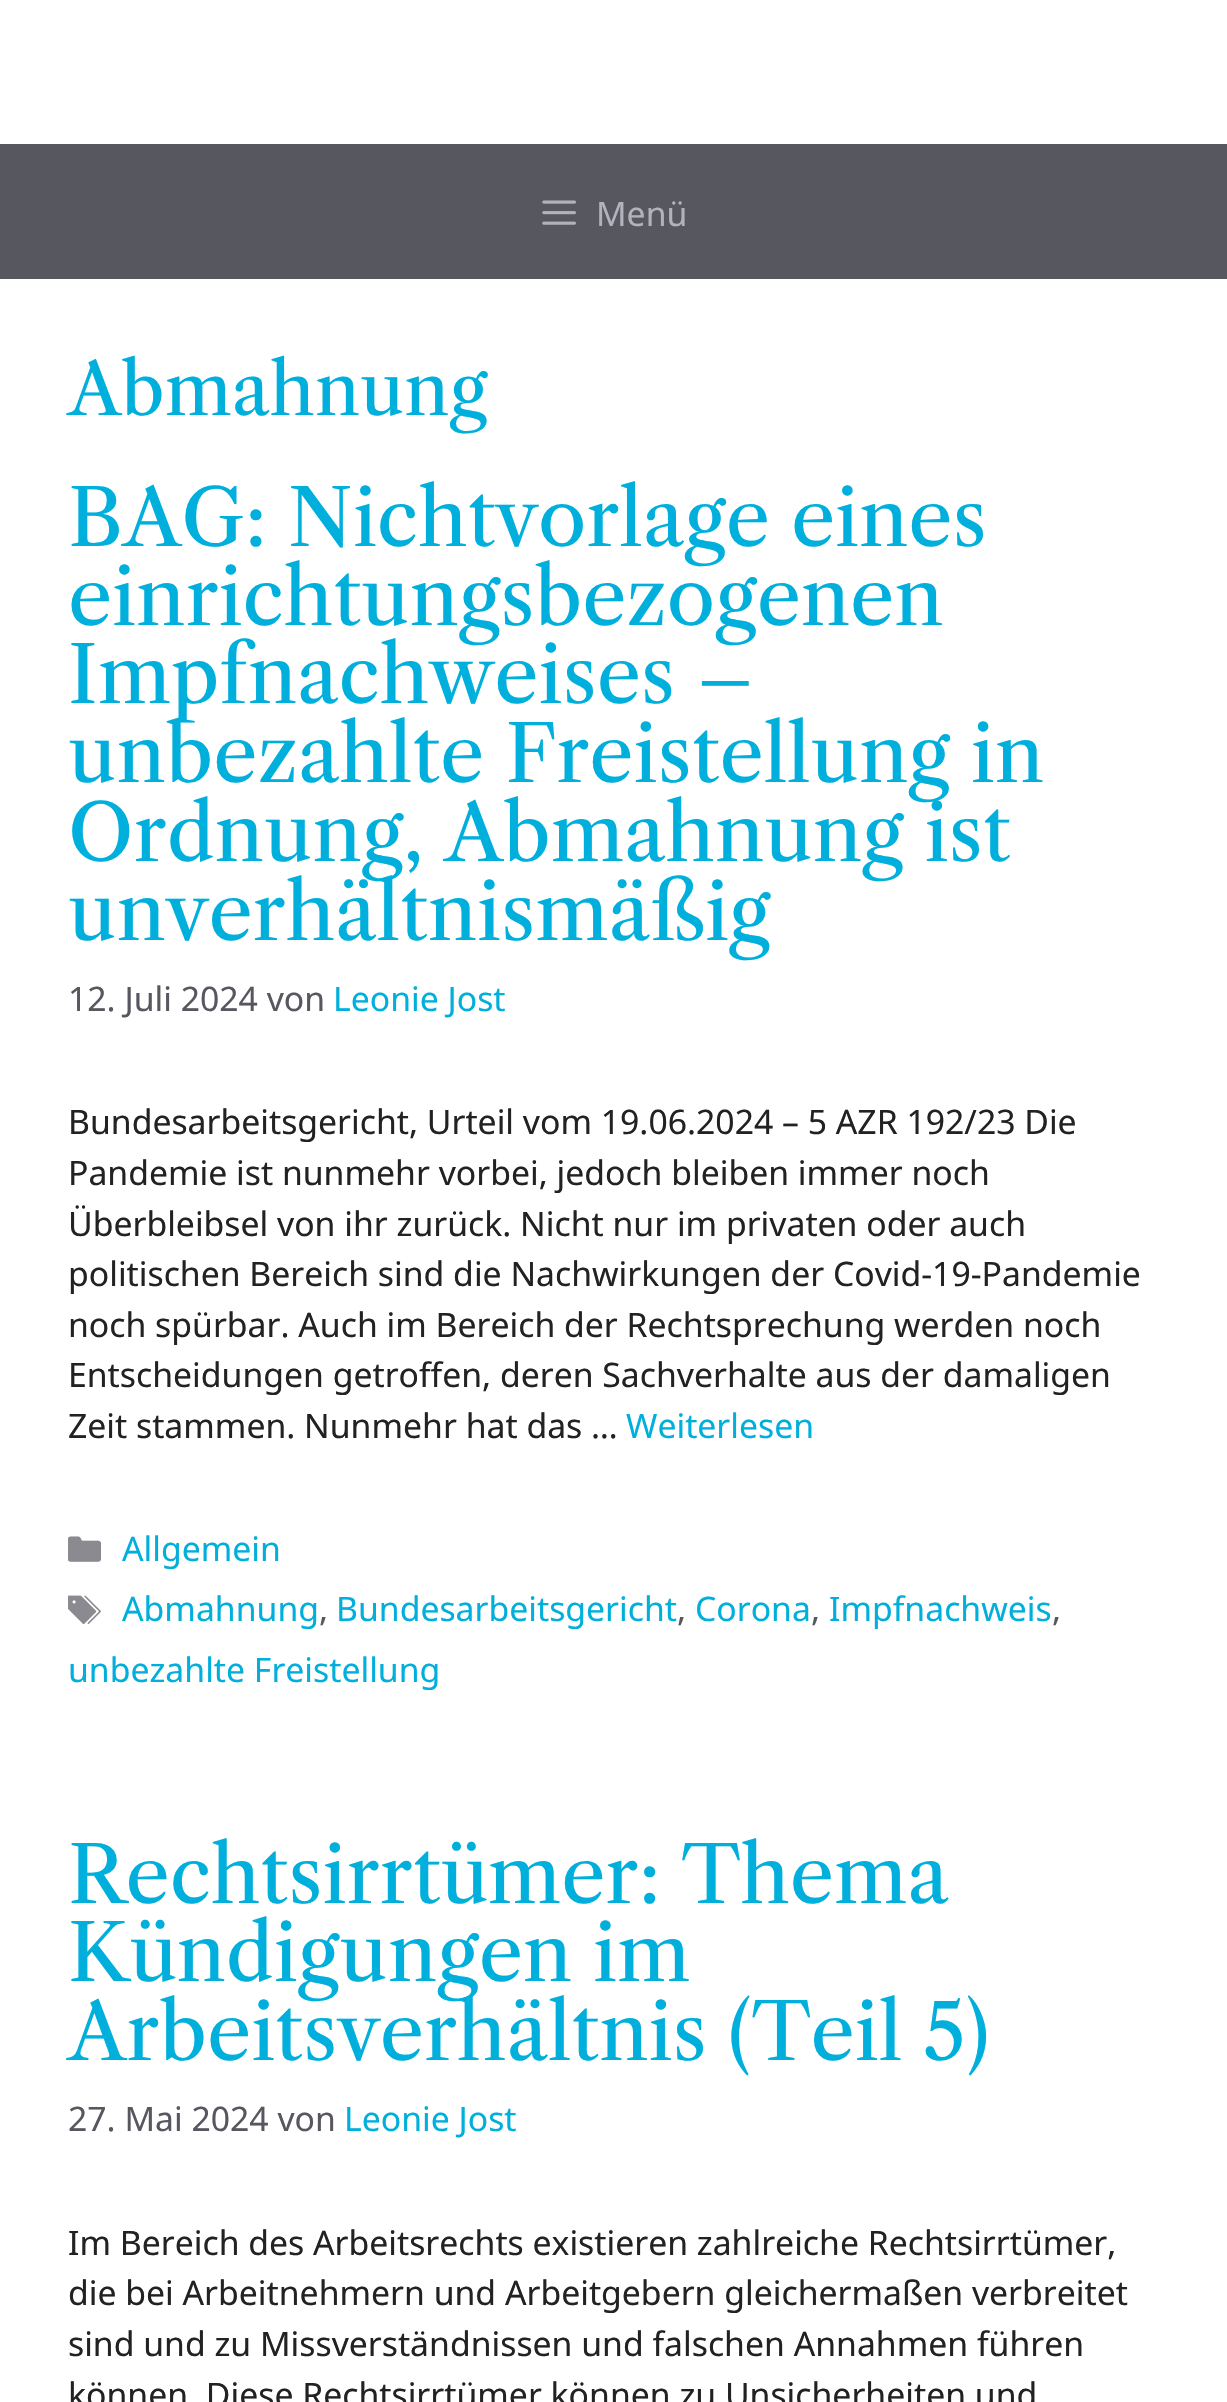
void draw(SkCanvas* canvas) {
	SkPaint paint;
	paint.setAntiAlias(true);
	canvas->clear(0xff575760);
	paint.setColor(0xffffffff);
	canvas->drawRect(SkRect::MakeXYWH(0, 0, 1227, 144), paint);
	canvas->drawImageRect(SkImages::DeferredFromEncodedData(SkData::MakeFromFileName("img1.png")), SkRect::MakeXYWH(542, 200, 34, 25), SkSamplingOptions());
	SkFont f1(fontMgr->matchFamilyStyle("Noto Sans", SkFontStyle::Normal()), 33.75);
	f1.setSubpixel(true);
	paint.setColor(0xffb2b2be);
	canvas->drawString("Menü", 596, 226, f1, paint);
	paint.setColor(0xffffffff);
	canvas->drawRect(SkRect::MakeXYWH(0, 279, 1227, 2123), paint);
	SkFont f2(fontMgr->matchFamilyStyle("Libre Caslon Text", SkFontStyle::Normal()), 72);
	f2.setSubpixel(true);
	paint.setColor(0xff00afdb);
	canvas->drawString("Abmahnung", 68, 415, f2, paint);
	SkFont f3(fontMgr->matchFamilyStyle("Libre Caslon Text", SkFontStyle::Normal()), 78.75);
	f3.setSubpixel(true);
	canvas->drawString("BAG: Nichtvorlage eines", 68, 546, f3, paint);
	canvas->drawString("einrichtungsbezogenen", 68, 625, f3, paint);
	canvas->drawString("Impfnachweises –", 68, 703, f3, paint);
	canvas->drawString("unbezahlte Freistellung in", 68, 782, f3, paint);
	canvas->drawString("Ordnung, Abmahnung ist", 68, 861, f3, paint);
	canvas->drawString("unverhältnismäßig", 68, 940, f3, paint);
	paint.setColor(0xff575760);
	canvas->drawString("12. Juli 2024 von", 68, 1011, f1, paint);
	paint.setColor(0xff00afdb);
	canvas->drawString("Leonie Jost", 333, 1011, f1, paint);
	paint.setColor(0xff222222);
	canvas->drawString("Bundesarbeitsgericht, Urteil vom 19.06.2024 – 5 AZR 192/23 Die", 68, 1134, f1, paint);
	canvas->drawString("Pandemie ist nunmehr vorbei, jedoch bleiben immer noch", 68, 1185, f1, paint);
	canvas->drawString("Überbleibsel von ihr zurück. Nicht nur im privaten oder auch", 68, 1236, f1, paint);
	canvas->drawString("politischen Bereich sind die Nachwirkungen der Covid-19-Pandemie", 68, 1286, f1, paint);
	canvas->drawString("noch spürbar. Auch im Bereich der Rechtsprechung werden noch", 68, 1337, f1, paint);
	canvas->drawString("Entscheidungen getroffen, deren Sachverhalte aus der damaligen", 68, 1387, f1, paint);
	canvas->drawString("Zeit stammen. Nunmehr hat das …", 68, 1438, f1, paint);
	paint.setColor(0xff00afdb);
	canvas->drawString("Weiterlesen", 626, 1438, f1, paint);
	canvas->drawImageRect(SkImages::DeferredFromEncodedData(SkData::MakeFromFileName("img2.png")), SkRect::MakeXYWH(68, 1536, 33, 26), SkSamplingOptions());
	canvas->drawString("Allgemein", 122, 1561, f1, paint);
	canvas->drawImageRect(SkImages::DeferredFromEncodedData(SkData::MakeFromFileName("img3.png")), SkRect::MakeXYWH(68, 1595, 33, 29), SkSamplingOptions());
	canvas->drawString("Abmahnung", 122, 1621, f1, paint);
	paint.setColor(0xff575760);
	canvas->drawString(",", 319, 1621, f1, paint);
	paint.setColor(0xff00afdb);
	canvas->drawString("Bundesarbeitsgericht", 336, 1621, f1, paint);
	paint.setColor(0xff575760);
	canvas->drawString(",", 677, 1621, f1, paint);
	paint.setColor(0xff00afdb);
	canvas->drawString("Corona", 695, 1621, f1, paint);
	paint.setColor(0xff575760);
	canvas->drawString(",", 811, 1621, f1, paint);
	paint.setColor(0xff00afdb);
	canvas->drawString("Impfnachweis", 829, 1621, f1, paint);
	paint.setColor(0xff575760);
	canvas->drawString(",", 1052, 1621, f1, paint);
	paint.setColor(0xff00afdb);
	canvas->drawString("unbezahlte Freistellung", 68, 1682, f1, paint);
	canvas->drawString("Rechtsirrtümer: Thema", 68, 1903, f3, paint);
	canvas->drawString("Kündigungen im", 68, 1981, f3, paint);
	canvas->drawString("Arbeitsverhältnis (Teil 5)", 68, 2060, f3, paint);
	paint.setColor(0xff575760);
	canvas->drawString("27. Mai 2024 von", 68, 2131, f1, paint);
	paint.setColor(0xff00afdb);
	canvas->drawString("Leonie Jost", 344, 2131, f1, paint);
	paint.setColor(0xff222222);
	canvas->drawString("Im Bereich des Arbeitsrechts existieren zahlreiche Rechtsirrtümer,", 68, 2255, f1, paint);
	canvas->drawString("die bei Arbeitnehmern und Arbeitgebern gleichermaßen verbreitet", 68, 2305, f1, paint);
	canvas->drawString("sind und zu Missverständnissen und falschen Annahmen führen", 68, 2356, f1, paint);
	canvas->drawString("können. Diese Rechtsirrtümer können zu Unsicherheiten und", 68, 2407, f1, paint);
}
